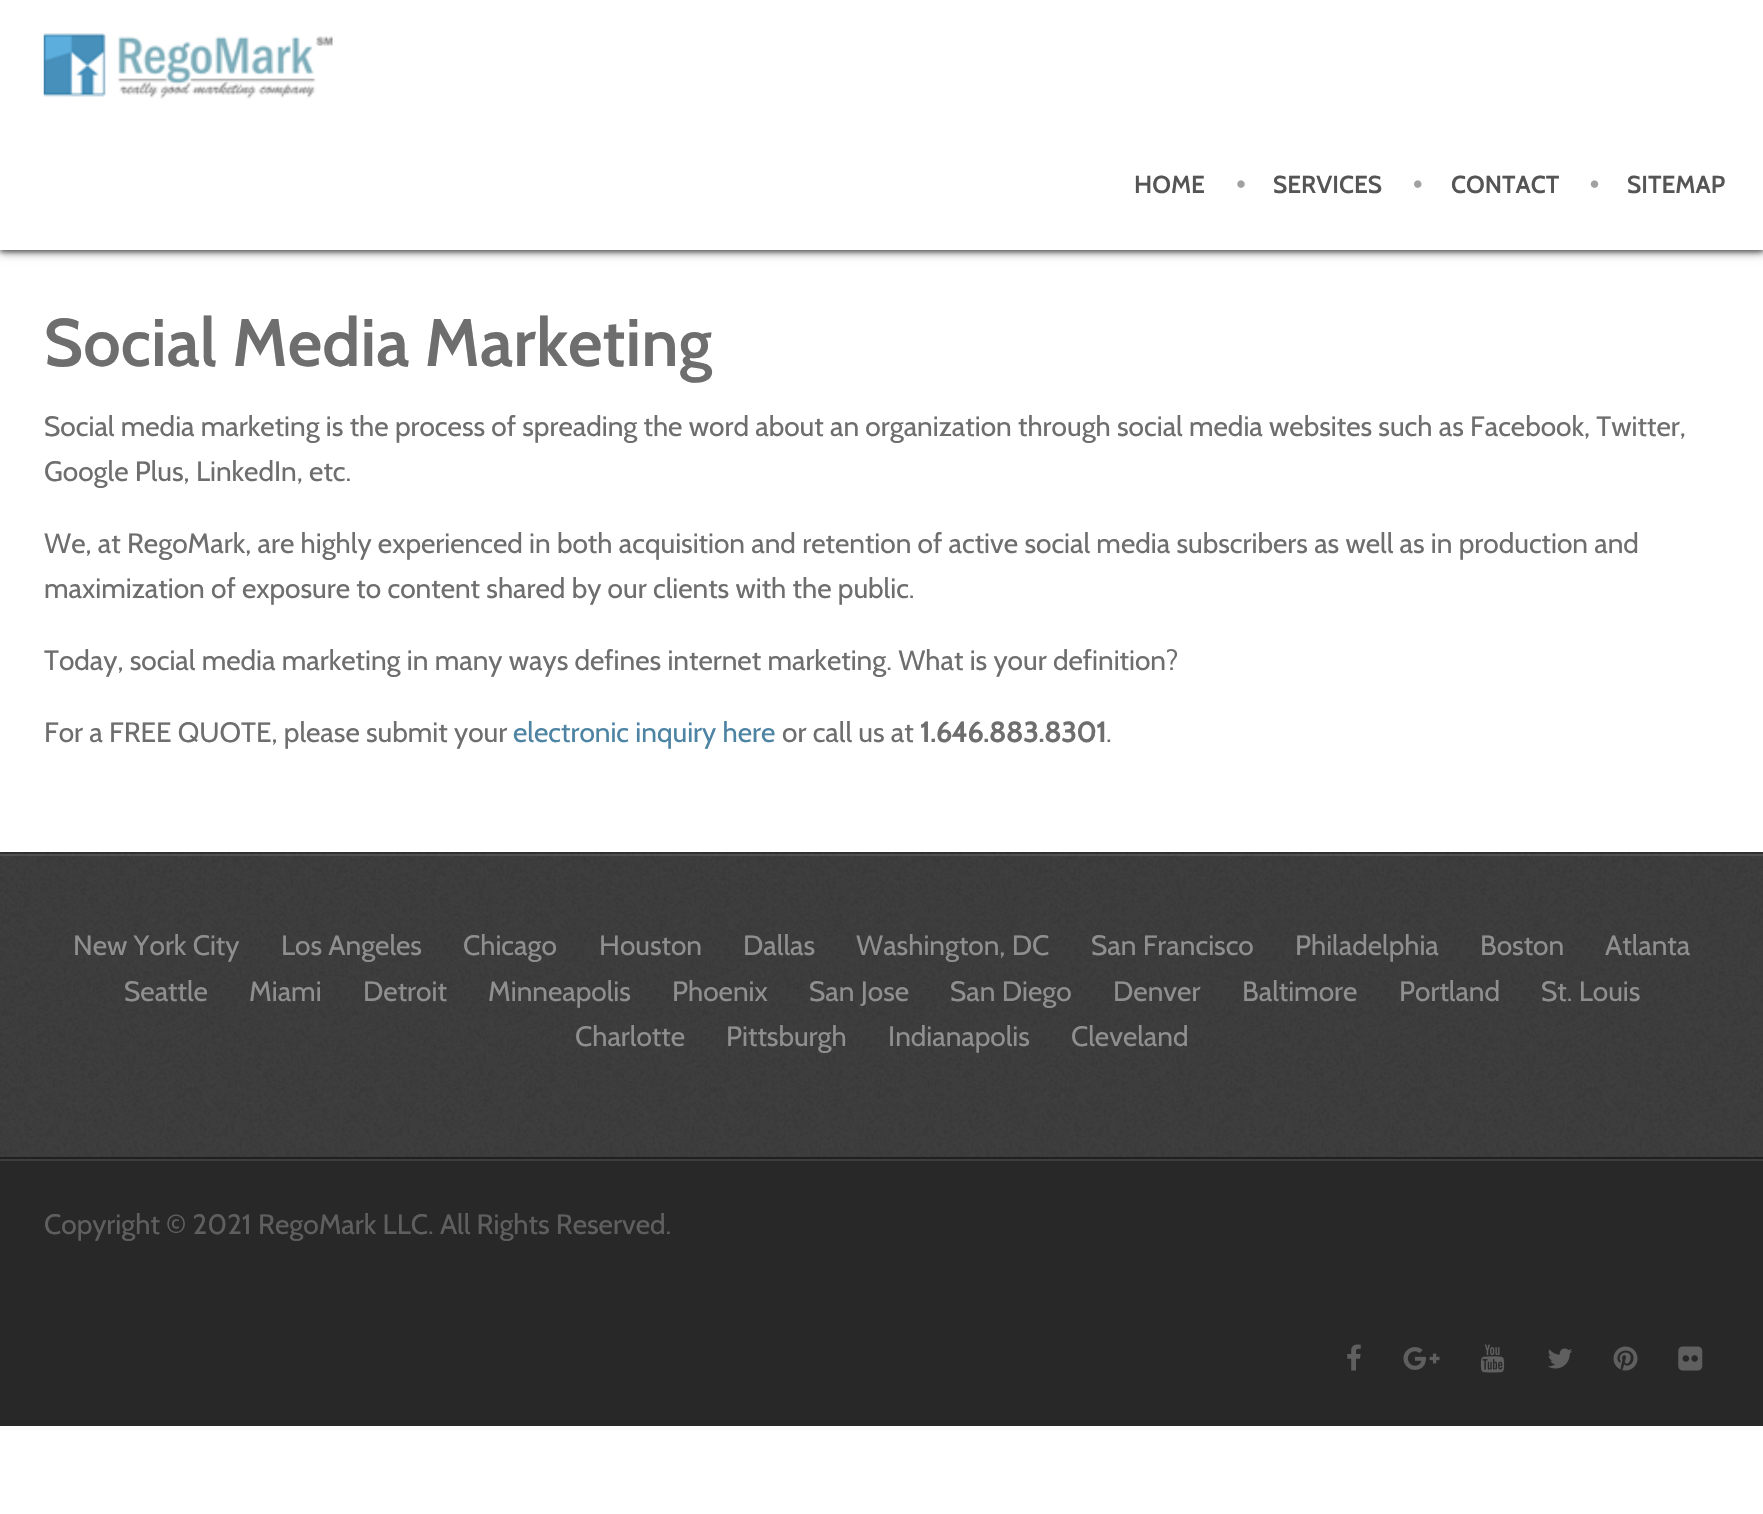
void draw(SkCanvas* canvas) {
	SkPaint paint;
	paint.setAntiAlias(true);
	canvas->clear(0xffffffff);
	paint.setColor(0x66000000);
	paint.setMaskFilter(SkMaskFilter::MakeBlur(kNormal_SkBlurStyle, 5));
	canvas->drawRect(SkRect::MakeXYWH(0, 2, 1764, 250), paint);
	paint.setMaskFilter(nullptr);
	paint.setColor(0x80000000);
	paint.setMaskFilter(SkMaskFilter::MakeBlur(kNormal_SkBlurStyle, 2.5));
	canvas->drawRect(SkRect::MakeXYWH(0, 2, 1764, 250), paint);
	paint.setMaskFilter(nullptr);
	paint.setColor(0xffffffff);
	canvas->drawRect(SkRect::MakeXYWH(0, 0, 1763, 250), paint);
	canvas->drawImageRect(SkImages::DeferredFromEncodedData(SkData::MakeFromFileName("img1.png")), SkRect::MakeXYWH(43, 33, 290, 66), SkSamplingOptions());
	SkFont f1(fontMgr->matchFamilyStyle("Cabin", SkFontStyle(600, SkFontStyle::kNormal_Width, SkFontStyle::kUpright_Slant)), 24.5);
	f1.setSubpixel(true);
	paint.setColor(0xff555555);
	canvas->drawString("HOME", 1134, 193, f1, paint);
	canvas->drawImageRect(SkImages::DeferredFromEncodedData(SkData::MakeFromFileName("img2.png")), SkRect::MakeXYWH(1237, 180, 8, 8), SkSamplingOptions());
	canvas->drawString("SERVICES", 1273, 193, f1, paint);
	canvas->drawImageRect(SkImages::DeferredFromEncodedData(SkData::MakeFromFileName("img3.png")), SkRect::MakeXYWH(1414, 180, 8, 8), SkSamplingOptions());
	canvas->drawString("CONTACT", 1451, 193, f1, paint);
	canvas->drawImageRect(SkImages::DeferredFromEncodedData(SkData::MakeFromFileName("img4.png")), SkRect::MakeXYWH(1590, 180, 9, 8), SkSamplingOptions());
	canvas->drawString("SITEMAP", 1627, 193, f1, paint);
	SkFont f2(fontMgr->matchFamilyStyle("Cabin", SkFontStyle(600, SkFontStyle::kNormal_Width, SkFontStyle::kUpright_Slant)), 67.25);
	f2.setSubpixel(true);
	paint.setColor(0xff6e6e6e);
	canvas->drawString("Social Media Marketing", 44, 366, f2, paint);
	SkFont f3(fontMgr->matchFamilyStyle("Cabin", SkFontStyle::Normal()), 28);
	f3.setSubpixel(true);
	canvas->drawString("Social media marketing is the process of spreading the word about an organization through social media websites such as Facebook, Twitter,", 44, 436, f3, paint);
	canvas->drawString("Google Plus, LinkedIn, etc.", 44, 481, f3, paint);
	canvas->drawString("We, at RegoMark, are highly experienced in both acquisition and retention of active social media subscribers as well as in production and", 44, 553, f3, paint);
	canvas->drawString("maximization of exposure to content shared by our clients with the public.", 44, 598, f3, paint);
	canvas->drawString("Today, social media marketing in many ways defines internet marketing. What is your definition?", 44, 670, f3, paint);
	canvas->drawString("For a FREE QUOTE, please submit your", 44, 742, f3, paint);
	paint.setColor(0xff4d83a3);
	canvas->drawString("electronic inquiry here", 513, 742, f3, paint);
	paint.setColor(0xff6e6e6e);
	canvas->drawString("or call us at", 782, 742, f3, paint);
	SkFont f4(fontMgr->matchFamilyStyle("Cabin", SkFontStyle::Bold()), 28);
	f4.setSubpixel(true);
	canvas->drawString("1.646.883.8301", 920, 742, f4, paint);
	canvas->drawString(".", 1106, 742, f3, paint);
	paint.setColor(0xff383838);
	canvas->drawRect(SkRect::MakeXYWH(0, 856, 1763, 301), paint);
	paint.setColor(0xff4c4c4c);
	canvas->drawRect(SkRect::MakeXYWH(0, 854, 1763, 2), paint);
	paint.setColor(0xff2d2d2d);
	canvas->drawRect(SkRect::MakeXYWH(0, 852, 1763, 2), paint);
	canvas->drawImageRect(SkImages::DeferredFromEncodedData(SkData::MakeFromFileName("img5.png")), SkRect::MakeXYWH(0, 852, 1763, 305), SkSamplingOptions());
	paint.setColor(0xff8f8f8f);
	canvas->drawString("New York City", 73, 955, f3, paint);
	canvas->drawString("Los Angeles", 281, 955, f3, paint);
	canvas->drawString("Chicago", 463, 955, f3, paint);
	canvas->drawString("Houston", 599, 955, f3, paint);
	canvas->drawString("Dallas", 743, 955, f3, paint);
	canvas->drawString("Washington, DC", 856, 955, f3, paint);
	canvas->drawString("San Francisco", 1091, 955, f3, paint);
	canvas->drawString("Philadelphia", 1295, 955, f3, paint);
	canvas->drawString("Boston", 1480, 955, f3, paint);
	canvas->drawString("Atlanta", 1605, 955, f3, paint);
	canvas->drawString("Seattle", 124, 1001, f3, paint);
	canvas->drawString("Miami", 249, 1001, f3, paint);
	canvas->drawString("Detroit", 363, 1001, f3, paint);
	canvas->drawString("Minneapolis", 488, 1001, f3, paint);
	canvas->drawString("Phoenix", 672, 1001, f3, paint);
	canvas->drawString("San Jose", 809, 1001, f3, paint);
	canvas->drawString("San Diego", 950, 1001, f3, paint);
	canvas->drawString("Denver", 1113, 1001, f3, paint);
	canvas->drawString("Baltimore", 1242, 1001, f3, paint);
	canvas->drawString("Portland", 1399, 1001, f3, paint);
	canvas->drawString("St. Louis", 1541, 1001, f3, paint);
	canvas->drawString("Charlotte", 575, 1046, f3, paint);
	canvas->drawString("Pittsburgh", 726, 1046, f3, paint);
	canvas->drawString("Indianapolis", 888, 1046, f3, paint);
	canvas->drawString("Cleveland", 1071, 1046, f3, paint);
	paint.setColor(0xff282828);
	canvas->drawRect(SkRect::MakeXYWH(0, 1161, 1763, 265), paint);
	paint.setColor(0xff3e3e3e);
	canvas->drawRect(SkRect::MakeXYWH(0, 1159, 1763, 2), paint);
	paint.setColor(0xff202020);
	canvas->drawRect(SkRect::MakeXYWH(0, 1157, 1763, 2), paint);
	paint.setColor(0xff5f5f5f);
	canvas->drawString("Copyright © 2021 RegoMark LLC. All Rights Reserved.", 44, 1234, f3, paint);
	canvas->drawImageRect(SkImages::DeferredFromEncodedData(SkData::MakeFromFileName("img6.png")), SkRect::MakeXYWH(1347, 1344, 14, 27), SkSamplingOptions());
	canvas->drawImageRect(SkImages::DeferredFromEncodedData(SkData::MakeFromFileName("img7.png")), SkRect::MakeXYWH(1403, 1347, 37, 23), SkSamplingOptions());
	canvas->drawImageRect(SkImages::DeferredFromEncodedData(SkData::MakeFromFileName("img8.png")), SkRect::MakeXYWH(1480, 1344, 25, 29), SkSamplingOptions());
	canvas->drawImageRect(SkImages::DeferredFromEncodedData(SkData::MakeFromFileName("img9.png")), SkRect::MakeXYWH(1548, 1348, 24, 21), SkSamplingOptions());
	canvas->drawImageRect(SkImages::DeferredFromEncodedData(SkData::MakeFromFileName("img10.png")), SkRect::MakeXYWH(1613, 1346, 25, 25), SkSamplingOptions());
	canvas->drawImageRect(SkImages::DeferredFromEncodedData(SkData::MakeFromFileName("img11.png")), SkRect::MakeXYWH(1678, 1346, 25, 25), SkSamplingOptions());
}
